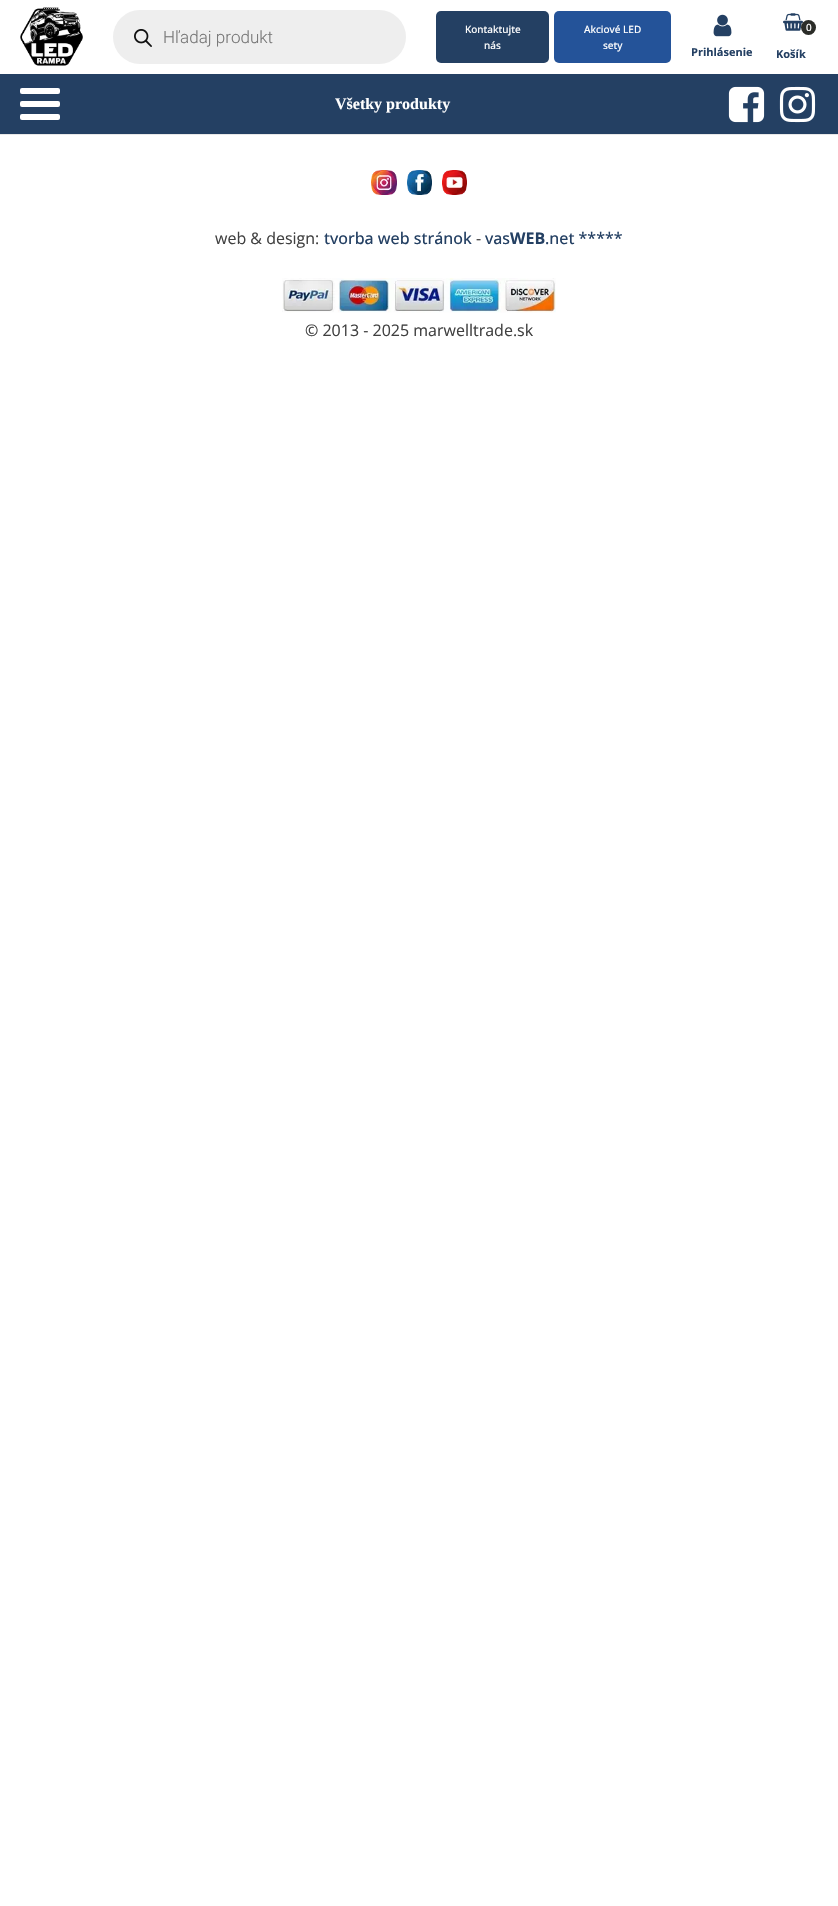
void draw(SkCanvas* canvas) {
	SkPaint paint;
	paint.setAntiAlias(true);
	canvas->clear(0xffffffff);
	canvas->drawImageRect(SkImages::DeferredFromEncodedData(SkData::MakeFromFileName("img1.png")), SkRect::MakeXYWH(20, 7, 63, 59), SkSamplingOptions());
	paint.setColor(0xffeeeeee);
	canvas->drawRoundRect(SkRect::MakeXYWH(113, 10, 293, 54), 27, 27, paint);
	canvas->drawImageRect(SkImages::DeferredFromEncodedData(SkData::MakeFromFileName("img2.png")), SkRect::MakeXYWH(134, 29, 18, 18), SkSamplingOptions());
	SkFont f1(fontMgr->matchFamilyStyle("Roboto", SkFontStyle(300, SkFontStyle::kNormal_Width, SkFontStyle::kUpright_Slant)), 17);
	f1.setSubpixel(true);
	paint.setColor(0xff777777);
	canvas->drawString("Hľadaj produkt", 163, 43, f1, paint);
	paint.setColor(0xff244063);
	canvas->drawRoundRect(SkRect::MakeXYWH(436, 11, 113, 52), 5, 5, paint);
	SkFont f2(fontMgr->matchFamilyStyle("Open Sans", SkFontStyle(500, SkFontStyle::kNormal_Width, SkFontStyle::kUpright_Slant)), 10);
	f2.setSubpixel(true);
	paint.setColor(0xffffffff);
	canvas->drawString("Kontaktujte", 465, 33, f2, paint);
	canvas->drawString("nás", 484, 49, f2, paint);
	paint.setColor(0xff245399);
	canvas->drawRoundRect(SkRect::MakeXYWH(554, 11, 117, 52), 5, 5, paint);
	paint.setColor(0xffffffff);
	canvas->drawString("Akciové LED", 584, 33, f2, paint);
	canvas->drawString("sety", 603, 49, f2, paint);
	canvas->drawImageRect(SkImages::DeferredFromEncodedData(SkData::MakeFromFileName("img3.png")), SkRect::MakeXYWH(713, 14, 19, 23), SkSamplingOptions());
	SkFont f3(fontMgr->matchFamilyStyle("Open Sans", SkFontStyle::Bold()), 11);
	f3.setSubpixel(true);
	paint.setColor(0xff244063);
	canvas->drawString("Prihlásenie", 691, 56, f3, paint);
	canvas->drawImageRect(SkImages::DeferredFromEncodedData(SkData::MakeFromFileName("img4.png")), SkRect::MakeXYWH(783, 13, 20, 18), SkSamplingOptions());
	paint.setColor(0xff2b2c28);
	canvas->drawCircle(808.5, 27.5, 7.5, paint);
	paint.setColor(0xffffffff);
	canvas->drawString("0", 806, 31, f2, paint);
	paint.setColor(0xff244063);
	canvas->drawString("Košík", 776, 58, f3, paint);
	canvas->drawRect(SkRect::MakeXYWH(0, 74, 838, 60), paint);
	paint.setColor(0xffffffff);
	canvas->drawRoundRect(SkRect::MakeXYWH(20, 88, 40, 6), 2, 2, paint);
	canvas->drawRoundRect(SkRect::MakeXYWH(20, 101, 40, 6), 2, 2, paint);
	canvas->drawRoundRect(SkRect::MakeXYWH(20, 114, 40, 6), 2, 2, paint);
	SkFont f4(fontMgr->matchFamilyStyle("Liberation Serif", SkFontStyle::Bold()), 16);
	f4.setSubpixel(true);
	canvas->drawString("Všetky produkty", 335, 109, f4, paint);
	canvas->drawImageRect(SkImages::DeferredFromEncodedData(SkData::MakeFromFileName("img5.png")), SkRect::MakeXYWH(728, 86, 37, 37), SkSamplingOptions());
	canvas->drawImageRect(SkImages::DeferredFromEncodedData(SkData::MakeFromFileName("img6.png")), SkRect::MakeXYWH(779, 86, 37, 37), SkSamplingOptions());
	paint.setColor(0xffe7e7e7);
	canvas->drawRect(SkRect::MakeXYWH(0, 134, 838, 1), paint);
	canvas->drawImageRect(SkImages::DeferredFromEncodedData(SkData::MakeFromFileName("img7.png")), SkRect::MakeXYWH(371, 170, 26, 25), SkSamplingOptions());
	canvas->drawImageRect(SkImages::DeferredFromEncodedData(SkData::MakeFromFileName("img8.png")), SkRect::MakeXYWH(407, 170, 25, 25), SkSamplingOptions());
	canvas->drawImageRect(SkImages::DeferredFromEncodedData(SkData::MakeFromFileName("img9.png")), SkRect::MakeXYWH(442, 170, 25, 25), SkSamplingOptions());
	SkFont f5(fontMgr->matchFamilyStyle("Open Sans", SkFontStyle::Normal()), 16);
	f5.setSubpixel(true);
	paint.setColor(0xff404040);
	canvas->drawString("web & design:", 215, 244, f5, paint);
	SkFont f6(fontMgr->matchFamilyStyle("Open Sans", SkFontStyle(500, SkFontStyle::kNormal_Width, SkFontStyle::kUpright_Slant)), 16);
	f6.setSubpixel(true);
	paint.setColor(0xff244063);
	canvas->drawString("tvorba web stránok", 324, 244, f6, paint);
	paint.setColor(0xff404040);
	canvas->drawString("-", 476, 244, f5, paint);
	paint.setColor(0xff244063);
	canvas->drawString("vas", 485, 244, f6, paint);
	SkFont f7(fontMgr->matchFamilyStyle("Open Sans", SkFontStyle::Bold()), 16);
	f7.setSubpixel(true);
	canvas->drawString("WEB", 510, 244, f7, paint);
	canvas->drawString(".net *****", 545, 244, f6, paint);
	canvas->drawImageRect(SkImages::DeferredFromEncodedData(SkData::MakeFromFileName("img10.png")), SkRect::MakeXYWH(282, 278, 274, 35), SkSamplingOptions());
	paint.setColor(0xff404040);
	canvas->drawString("© 2013 - 2025 marwelltrade.sk", 305, 336, f5, paint);
}
